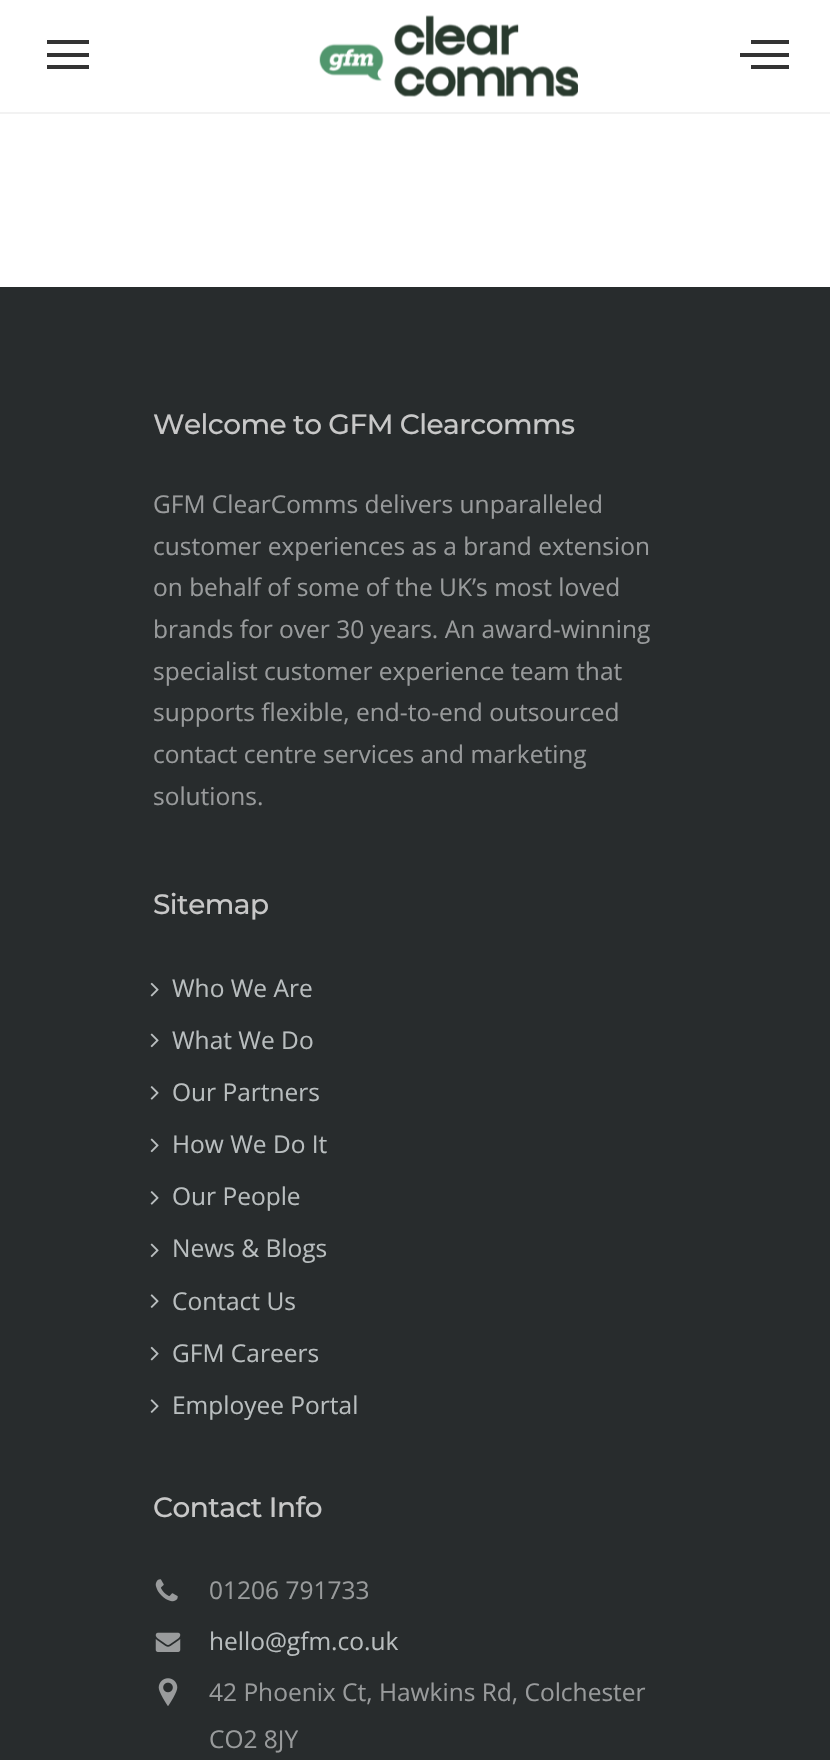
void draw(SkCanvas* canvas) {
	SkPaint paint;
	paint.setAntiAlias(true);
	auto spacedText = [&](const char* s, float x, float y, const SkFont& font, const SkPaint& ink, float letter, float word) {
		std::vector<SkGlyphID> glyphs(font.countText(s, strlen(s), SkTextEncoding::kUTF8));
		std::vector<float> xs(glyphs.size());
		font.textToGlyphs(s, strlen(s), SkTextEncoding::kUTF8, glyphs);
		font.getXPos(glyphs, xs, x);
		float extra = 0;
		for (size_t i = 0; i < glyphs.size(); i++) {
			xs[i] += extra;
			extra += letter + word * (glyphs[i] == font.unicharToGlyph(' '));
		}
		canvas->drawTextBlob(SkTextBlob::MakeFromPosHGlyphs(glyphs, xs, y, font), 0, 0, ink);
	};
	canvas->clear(0xffffffff);
	paint.setStroke(true);
	paint.setStrokeWidth(2);
	paint.setColor(0xfff2f2f2);
	canvas->drawRect(SkRect::MakeXYWH(-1, -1, 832, 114), paint);
	paint.setStroke(false);
	paint.setColor(0xff333333);
	canvas->drawRect(SkRect::MakeXYWH(47, 40, 42, 4), paint);
	canvas->drawRect(SkRect::MakeXYWH(47, 53, 42, 4), paint);
	canvas->drawRect(SkRect::MakeXYWH(47, 65, 42, 4), paint);
	canvas->drawImageRect(SkImages::DeferredFromEncodedData(SkData::MakeFromFileName("img1.png")), SkRect::MakeXYWH(319, 15, 259, 82), SkSamplingOptions());
	canvas->drawRect(SkRect::MakeXYWH(751, 40, 38, 4), paint);
	canvas->drawRect(SkRect::MakeXYWH(740, 53, 49, 4), paint);
	canvas->drawRect(SkRect::MakeXYWH(751, 65, 38, 4), paint);
	paint.setColor(0xff282c2d);
	canvas->drawRect(SkRect::MakeXYWH(0, 287, 830, 1473), paint);
	SkFont f1(fontMgr->matchFamilyStyle("Montserrat", SkFontStyle(500, SkFontStyle::kNormal_Width, SkFontStyle::kUpright_Slant)), 28);
	f1.setSubpixel(true);
	paint.setColor(0xffc8c8c8);
	spacedText("Welcome to GFM Clearcomms", 153, 434, f1, paint, -0.55, 0);
	SkFont f2(fontMgr->matchFamilyStyle("Open Sans", SkFontStyle::Normal()), 24.5);
	f2.setSubpixel(true);
	paint.setColor(0xff999b9c);
	canvas->drawString("GFM ClearComms delivers unparalleled", 153, 513, f2, paint);
	canvas->drawString("customer experiences as a brand extension", 153, 555, f2, paint);
	canvas->drawString("on behalf of some of the UK’s most loved", 153, 596, f2, paint);
	canvas->drawString("brands for over 30 years. An award-winning", 153, 638, f2, paint);
	canvas->drawString("specialist customer experience team that", 153, 680, f2, paint);
	canvas->drawString("supports flexible, end-to-end outsourced", 153, 721, f2, paint);
	canvas->drawString("contact centre services and marketing", 153, 763, f2, paint);
	canvas->drawString("solutions.", 153, 805, f2, paint);
	paint.setColor(0xffc8c8c8);
	spacedText("Sitemap", 153, 914, f1, paint, -0.55, 0);
	canvas->drawImageRect(SkImages::DeferredFromEncodedData(SkData::MakeFromFileName("img2.png")), SkRect::MakeXYWH(150, 982, 9, 15), SkSamplingOptions());
	paint.setColor(0xffb9bebf);
	canvas->drawString("Who We Are", 172, 997, f2, paint);
	canvas->drawImageRect(SkImages::DeferredFromEncodedData(SkData::MakeFromFileName("img3.png")), SkRect::MakeXYWH(150, 1033, 9, 15), SkSamplingOptions());
	canvas->drawString("What We Do", 172, 1049, f2, paint);
	canvas->drawImageRect(SkImages::DeferredFromEncodedData(SkData::MakeFromFileName("img4.png")), SkRect::MakeXYWH(150, 1086, 9, 14), SkSamplingOptions());
	canvas->drawString("Our Partners", 172, 1101, f2, paint);
	canvas->drawImageRect(SkImages::DeferredFromEncodedData(SkData::MakeFromFileName("img3.png")), SkRect::MakeXYWH(150, 1138, 9, 15), SkSamplingOptions());
	canvas->drawString("How We Do It", 172, 1153, f2, paint);
	canvas->drawImageRect(SkImages::DeferredFromEncodedData(SkData::MakeFromFileName("img4.png")), SkRect::MakeXYWH(150, 1191, 9, 14), SkSamplingOptions());
	canvas->drawString("Our People", 172, 1205, f2, paint);
	canvas->drawImageRect(SkImages::DeferredFromEncodedData(SkData::MakeFromFileName("img3.png")), SkRect::MakeXYWH(150, 1243, 9, 15), SkSamplingOptions());
	canvas->drawString("News & Blogs", 172, 1257, f2, paint);
	canvas->drawImageRect(SkImages::DeferredFromEncodedData(SkData::MakeFromFileName("img5.png")), SkRect::MakeXYWH(150, 1294, 9, 14), SkSamplingOptions());
	canvas->drawString("Contact Us", 172, 1310, f2, paint);
	canvas->drawImageRect(SkImages::DeferredFromEncodedData(SkData::MakeFromFileName("img2.png")), SkRect::MakeXYWH(150, 1346, 9, 15), SkSamplingOptions());
	canvas->drawString("GFM Careers", 172, 1362, f2, paint);
	canvas->drawImageRect(SkImages::DeferredFromEncodedData(SkData::MakeFromFileName("img5.png")), SkRect::MakeXYWH(150, 1399, 9, 14), SkSamplingOptions());
	canvas->drawString("Employee Portal", 172, 1414, f2, paint);
	paint.setColor(0xffc8c8c8);
	spacedText("Contact Info", 153, 1517, f1, paint, -0.55, 0);
	canvas->drawImageRect(SkImages::DeferredFromEncodedData(SkData::MakeFromFileName("img6.png")), SkRect::MakeXYWH(155, 1579, 23, 23), SkSamplingOptions());
	paint.setColor(0xff999b9c);
	canvas->drawString("01206 791733", 209, 1599, f2, paint);
	canvas->drawImageRect(SkImages::DeferredFromEncodedData(SkData::MakeFromFileName("img7.png")), SkRect::MakeXYWH(155, 1632, 26, 20), SkSamplingOptions());
	paint.setColor(0xffb9bebf);
	canvas->drawString("hello@gfm.co.uk", 209, 1650, f2, paint);
	canvas->drawImageRect(SkImages::DeferredFromEncodedData(SkData::MakeFromFileName("img8.png")), SkRect::MakeXYWH(158, 1678, 20, 28), SkSamplingOptions());
	paint.setColor(0xff999b9c);
	canvas->drawString("42 Phoenix Ct, Hawkins Rd, Colchester", 209, 1701, f2, paint);
	canvas->drawString("CO2 8JY", 209, 1748, f2, paint);
}
